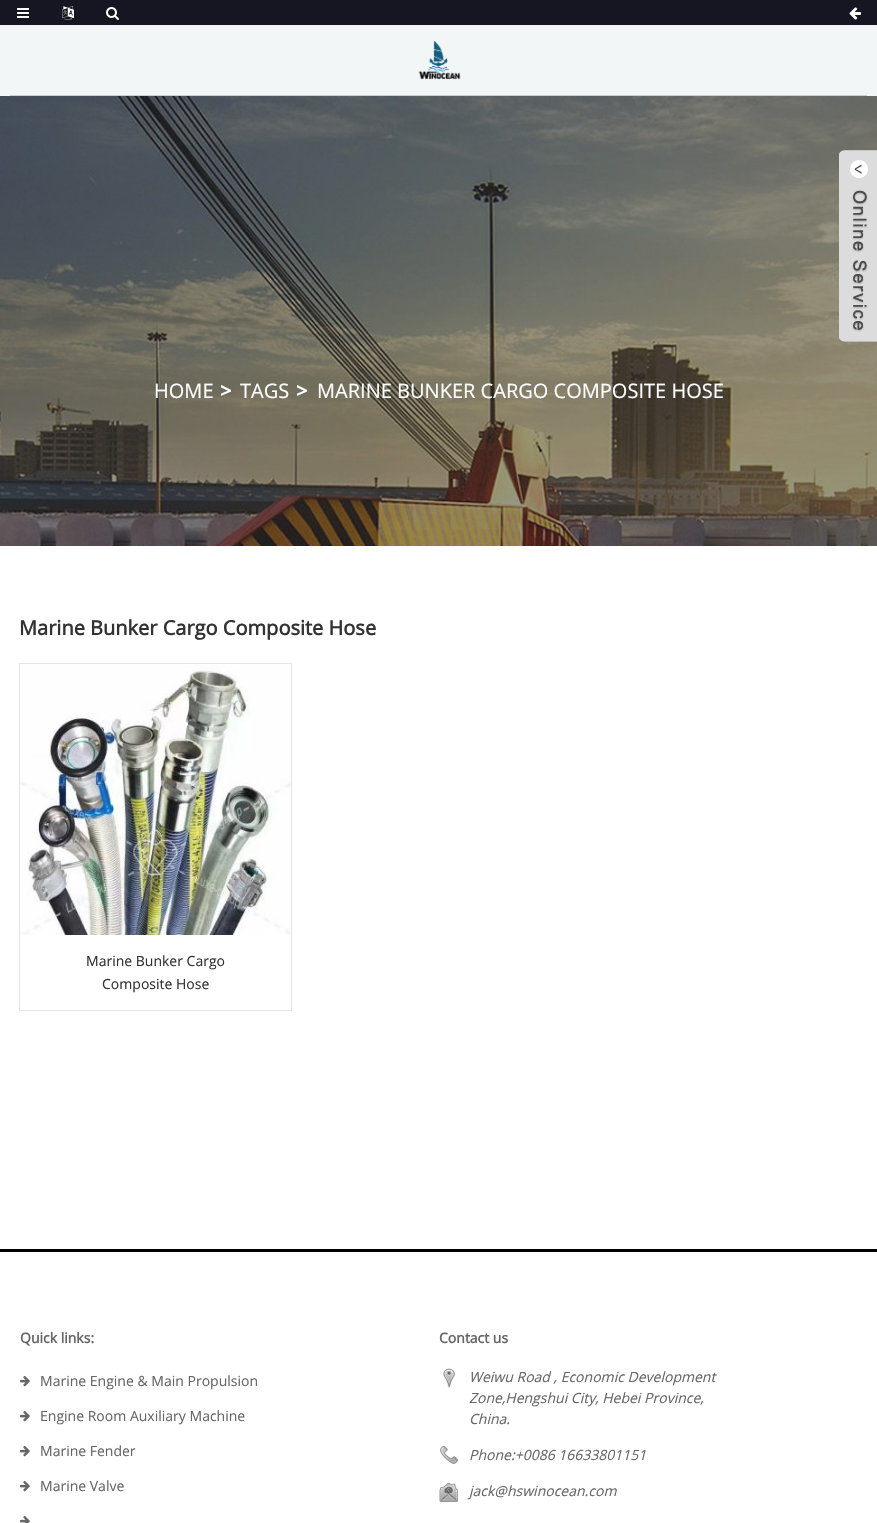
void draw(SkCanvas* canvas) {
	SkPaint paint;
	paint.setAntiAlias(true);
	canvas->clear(0xffffffff);
	paint.setColor(0xff161622);
	canvas->drawRect(SkRect::MakeXYWH(0, 0, 877, 25), paint);
	canvas->drawImageRect(SkImages::DeferredFromEncodedData(SkData::MakeFromFileName("img1.png")), SkRect::MakeXYWH(17, 8, 12, 10), SkSamplingOptions());
	canvas->drawImageRect(SkImages::DeferredFromEncodedData(SkData::MakeFromFileName("img2.png")), SkRect::MakeXYWH(62, 6, 12, 14), SkSamplingOptions());
	canvas->drawImageRect(SkImages::DeferredFromEncodedData(SkData::MakeFromFileName("img3.png")), SkRect::MakeXYWH(106, 7, 13, 13), SkSamplingOptions());
	canvas->drawImageRect(SkImages::DeferredFromEncodedData(SkData::MakeFromFileName("img4.png")), SkRect::MakeXYWH(849, 7, 12, 13), SkSamplingOptions());
	paint.setColor(0xfff3f6f7);
	canvas->drawRect(SkRect::MakeXYWH(0, 25, 877, 71), paint);
	paint.setColor(0xffc2d1d6);
	canvas->drawRect(SkRect::MakeXYWH(10, 95, 857, 1), paint);
	canvas->drawImageRect(SkImages::DeferredFromEncodedData(SkData::MakeFromFileName("img5.png")), SkRect::MakeXYWH(418, 41, 43, 39), SkSamplingOptions());
	canvas->drawImageRect(SkImages::DeferredFromEncodedData(SkData::MakeFromFileName("img7.png")), SkRect::MakeXYWH(0, 96, 877, 450), SkSamplingOptions());
	canvas->drawImageRect(SkImages::DeferredFromEncodedData(SkData::MakeFromFileName("img6.png")), SkRect::MakeXYWH(839, 150, 38, 192), SkSamplingOptions());
	SkFont f1(fontMgr->matchFamilyStyle("Open Sans", SkFontStyle::Normal()), 20);
	f1.setSubpixel(true);
	paint.setColor(0xffffffff);
	canvas->drawString("HOME", 154, 398, f1, paint);
	SkFont f2(fontMgr->matchFamilyStyle("Open Sans", SkFontStyle::Bold()), 20);
	f2.setSubpixel(true);
	canvas->drawString(">", 220, 398, f2, paint);
	canvas->drawString("TAGS", 240, 398, f1, paint);
	canvas->drawString(">", 296, 398, f2, paint);
	canvas->drawString("MARINE BUNKER CARGO COMPOSITE HOSE", 317, 398, f1, paint);
	paint.setColor(0xff333333);
	canvas->drawString("Marine Bunker Cargo Composite Hose", 19, 635, f2, paint);
	paint.setStroke(true);
	paint.setStrokeWidth(1);
	paint.setColor(0xffe5e5e5);
	canvas->drawRect(SkRect::MakeXYWH(19.5, 663.5, 272, 347), paint);
	canvas->drawImageRect(SkImages::DeferredFromEncodedData(SkData::MakeFromFileName("img8.png")), SkRect::MakeXYWH(20, 665, 271, 270), SkSamplingOptions());
	SkFont f3(fontMgr->matchFamilyStyle("Open Sans", SkFontStyle::Normal()), 14);
	f3.setSubpixel(true);
	paint.setStroke(false);
	paint.setColor(0xff333333);
	canvas->drawString("Marine Bunker Cargo", 86, 966, f3, paint);
	canvas->drawString("Composite Hose", 102, 989, f3, paint);
	paint.setColor(0xff000000);
	canvas->drawRect(SkRect::MakeXYWH(0, 1249, 877, 3), paint);
	SkFont f4(fontMgr->matchFamilyStyle("Open Sans", SkFontStyle::Bold()), 14);
	f4.setSubpixel(true);
	paint.setColor(0xff666666);
	canvas->drawString("Quick links:", 20, 1343, f4, paint);
	canvas->drawImageRect(SkImages::DeferredFromEncodedData(SkData::MakeFromFileName("img9.png")), SkRect::MakeXYWH(20, 1376, 10, 11), SkSamplingOptions());
	canvas->drawString("Marine Engine & Main Propulsion", 40, 1386, f3, paint);
	canvas->drawImageRect(SkImages::DeferredFromEncodedData(SkData::MakeFromFileName("img9.png")), SkRect::MakeXYWH(20, 1411, 10, 11), SkSamplingOptions());
	canvas->drawString("Engine Room Auxiliary Machine", 40, 1421, f3, paint);
	canvas->drawImageRect(SkImages::DeferredFromEncodedData(SkData::MakeFromFileName("img9.png")), SkRect::MakeXYWH(20, 1446, 10, 11), SkSamplingOptions());
	canvas->drawString("Marine Fender", 40, 1456, f3, paint);
	canvas->drawImageRect(SkImages::DeferredFromEncodedData(SkData::MakeFromFileName("img9.png")), SkRect::MakeXYWH(20, 1481, 10, 11), SkSamplingOptions());
	canvas->drawString("Marine Valve", 40, 1491, f3, paint);
	canvas->drawImageRect(SkImages::DeferredFromEncodedData(SkData::MakeFromFileName("img10.png")), SkRect::MakeXYWH(20, 1516, 10, 7), SkSamplingOptions());
	canvas->drawString("Contact us", 439, 1343, f4, paint);
	canvas->drawImageRect(SkImages::DeferredFromEncodedData(SkData::MakeFromFileName("img11.png")), SkRect::MakeXYWH(443, 1368, 12, 20), SkSamplingOptions());
	SkFont f5(fontMgr->matchFamilyStyle("Open Sans", SkFontStyle::Italic()), 14);
	f5.setSubpixel(true);
	canvas->drawString("Weiwu Road , Economic Development", 469, 1382, f5, paint);
	canvas->drawString("Zone,Hengshui City, Hebei Province,", 469, 1403, f5, paint);
	canvas->drawString("China.", 469, 1424, f5, paint);
	canvas->drawImageRect(SkImages::DeferredFromEncodedData(SkData::MakeFromFileName("img12.png")), SkRect::MakeXYWH(440, 1446, 18, 18), SkSamplingOptions());
	canvas->drawString("Phone:+0086 16633801151", 469, 1460, f5, paint);
	canvas->drawImageRect(SkImages::DeferredFromEncodedData(SkData::MakeFromFileName("img13.png")), SkRect::MakeXYWH(439, 1483, 19, 19), SkSamplingOptions());
	canvas->drawString("jack@hswinocean.com", 469, 1496, f5, paint);
}
